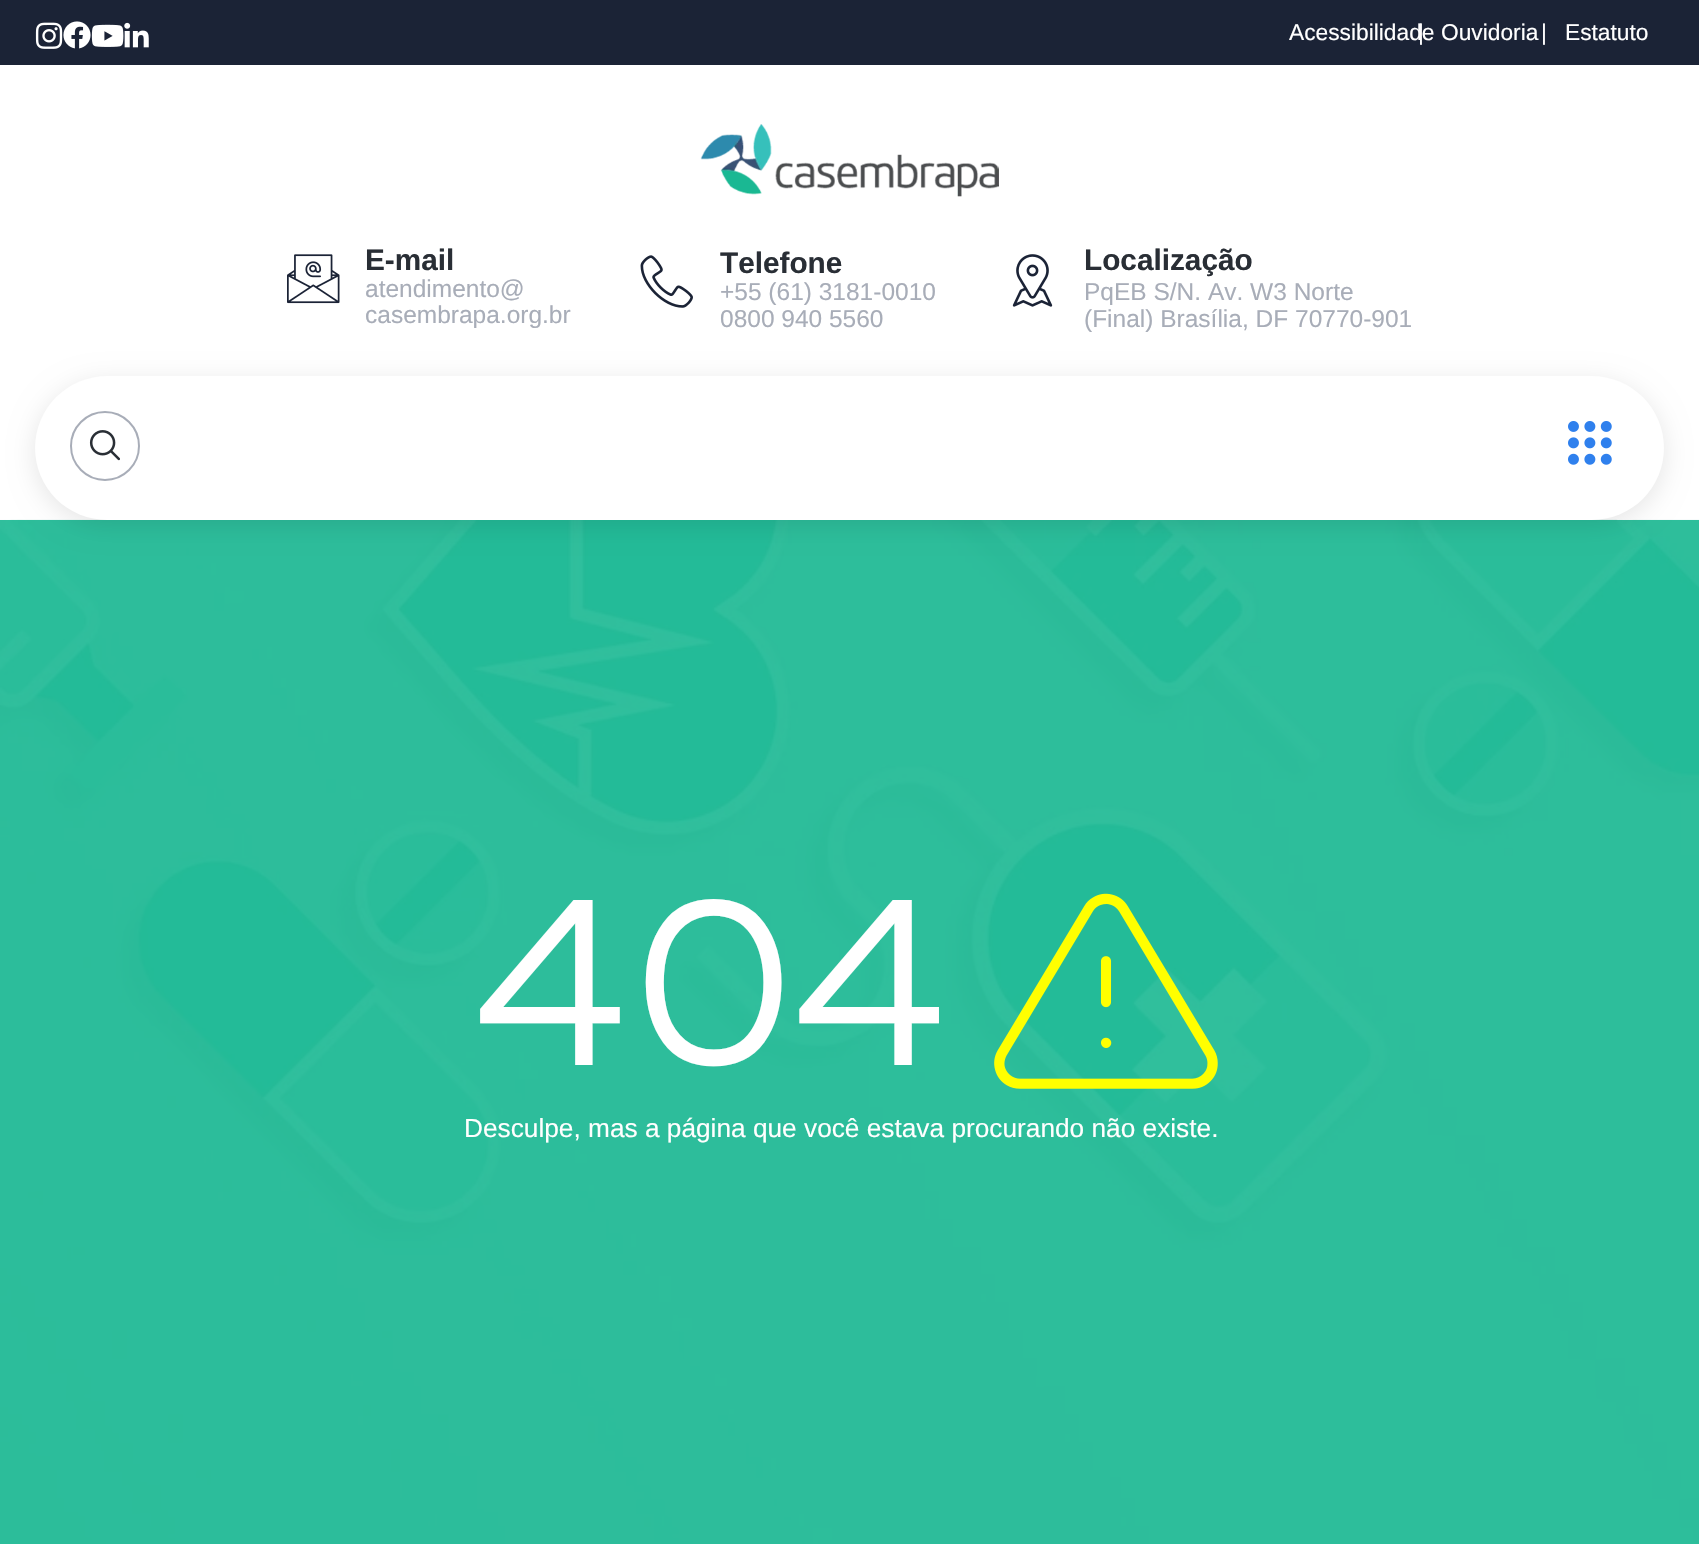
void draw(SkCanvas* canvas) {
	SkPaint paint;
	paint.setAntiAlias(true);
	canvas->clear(0xffffffff);
	paint.setColor(0xff1b2336);
	canvas->drawRect(SkRect::MakeXYWH(0, 0, 1699, 65), paint);
	canvas->drawImageRect(SkImages::DeferredFromEncodedData(SkData::MakeFromFileName("img1.png")), SkRect::MakeXYWH(35, 22, 28, 27), SkSamplingOptions());
	canvas->drawImageRect(SkImages::DeferredFromEncodedData(SkData::MakeFromFileName("img2.png")), SkRect::MakeXYWH(63, 21, 28, 28), SkSamplingOptions());
	canvas->drawImageRect(SkImages::DeferredFromEncodedData(SkData::MakeFromFileName("img3.png")), SkRect::MakeXYWH(91, 24, 33, 23), SkSamplingOptions());
	canvas->drawImageRect(SkImages::DeferredFromEncodedData(SkData::MakeFromFileName("img4.png")), SkRect::MakeXYWH(124, 22, 25, 26), SkSamplingOptions());
	SkFont f1(fontMgr->matchFamilyStyle("Liberation Sans", SkFontStyle::Normal()), 22.75);
	f1.setSubpixel(true);
	paint.setColor(0xffffffff);
	canvas->drawString("Acessibilidade", 1289, 40, f1, paint);
	canvas->drawString("|", 1418, 40, f1, paint);
	canvas->drawString("Ouvidoria", 1441, 40, f1, paint);
	canvas->drawString("|", 1541, 40, f1, paint);
	canvas->drawString("Estatuto", 1565, 40, f1, paint);
	canvas->drawImageRect(SkImages::DeferredFromEncodedData(SkData::MakeFromFileName("img5.png")), SkRect::MakeXYWH(700, 124, 299, 73), SkSamplingOptions());
	canvas->drawImageRect(SkImages::DeferredFromEncodedData(SkData::MakeFromFileName("img6.png")), SkRect::MakeXYWH(287, 254, 53, 50), SkSamplingOptions());
	SkFont f2(fontMgr->matchFamilyStyle("Liberation Sans", SkFontStyle::Bold()), 29.75);
	f2.setSubpixel(true);
	paint.setColor(0xff292e35);
	canvas->drawString("E-mail", 365, 270, f2, paint);
	SkFont f3(fontMgr->matchFamilyStyle("Liberation Sans", SkFontStyle::Normal()), 24.5);
	f3.setSubpixel(true);
	paint.setColor(0xffa8adb8);
	canvas->drawString("atendimento@", 365, 297, f3, paint);
	canvas->drawString("casembrapa.org.br", 365, 323, f3, paint);
	canvas->drawImageRect(SkImages::DeferredFromEncodedData(SkData::MakeFromFileName("img7.png")), SkRect::MakeXYWH(640, 255, 53, 53), SkSamplingOptions());
	paint.setColor(0xff292e35);
	canvas->drawString("Telefone", 720, 273, f2, paint);
	paint.setColor(0xffa8adb8);
	canvas->drawString("+55 (61) 3181-0010", 720, 300, f3, paint);
	canvas->drawString("0800 940 5560", 720, 327, f3, paint);
	canvas->drawImageRect(SkImages::DeferredFromEncodedData(SkData::MakeFromFileName("img8.png")), SkRect::MakeXYWH(1012, 254, 41, 53), SkSamplingOptions());
	paint.setColor(0xff292e35);
	canvas->drawString("Localização", 1084, 270, f2, paint);
	paint.setColor(0xffa8adb8);
	canvas->drawString("PqEB S/N. Av. W3 Norte", 1084, 300, f3, paint);
	canvas->drawString("(Final) Brasília, DF 70770-901", 1084, 327, f3, paint);
	canvas->drawImageRect(SkImages::DeferredFromEncodedData(SkData::MakeFromFileName("img11.png")), SkRect::MakeXYWH(0, 519, 1699, 1025), SkSamplingOptions());
	paint.setColor(0x1a000000);
	paint.setMaskFilter(SkMaskFilter::MakeBlur(kNormal_SkBlurStyle, 13));
	canvas->drawRoundRect(SkRect::MakeXYWH(35, 382, 1629, 143), 71.5, 71.5, paint);
	paint.setMaskFilter(nullptr);
	paint.setColor(0xffffffff);
	canvas->drawRoundRect(SkRect::MakeXYWH(35, 376, 1629, 144), 72, 72, paint);
	paint.setStroke(true);
	paint.setStrokeWidth(2);
	paint.setColor(0xffa8adb8);
	canvas->drawCircle(105, 446, 34, paint);
	canvas->drawImageRect(SkImages::DeferredFromEncodedData(SkData::MakeFromFileName("img9.png")), SkRect::MakeXYWH(89, 430, 31, 31), SkSamplingOptions());
	canvas->drawImageRect(SkImages::DeferredFromEncodedData(SkData::MakeFromFileName("img10.png")), SkRect::MakeXYWH(1568, 421, 44, 44), SkSamplingOptions());
	SkFont f4(fontMgr->matchFamilyStyle("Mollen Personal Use", SkFontStyle::Bold()), 233);
	f4.setSubpixel(true);
	paint.setStroke(false);
	paint.setColor(0xffffffff);
	canvas->drawString("404", 472, 1065, f4, paint);
	canvas->drawImageRect(SkImages::DeferredFromEncodedData(SkData::MakeFromFileName("img12.png")), SkRect::MakeXYWH(994, 893, 224, 196), SkSamplingOptions());
	SkFont f5(fontMgr->matchFamilyStyle("Liberation Sans", SkFontStyle::Normal()), 26.25);
	f5.setSubpixel(true);
	canvas->drawString("Desculpe, mas a página que você estava procurando não existe.", 464, 1137, f5, paint);
}
